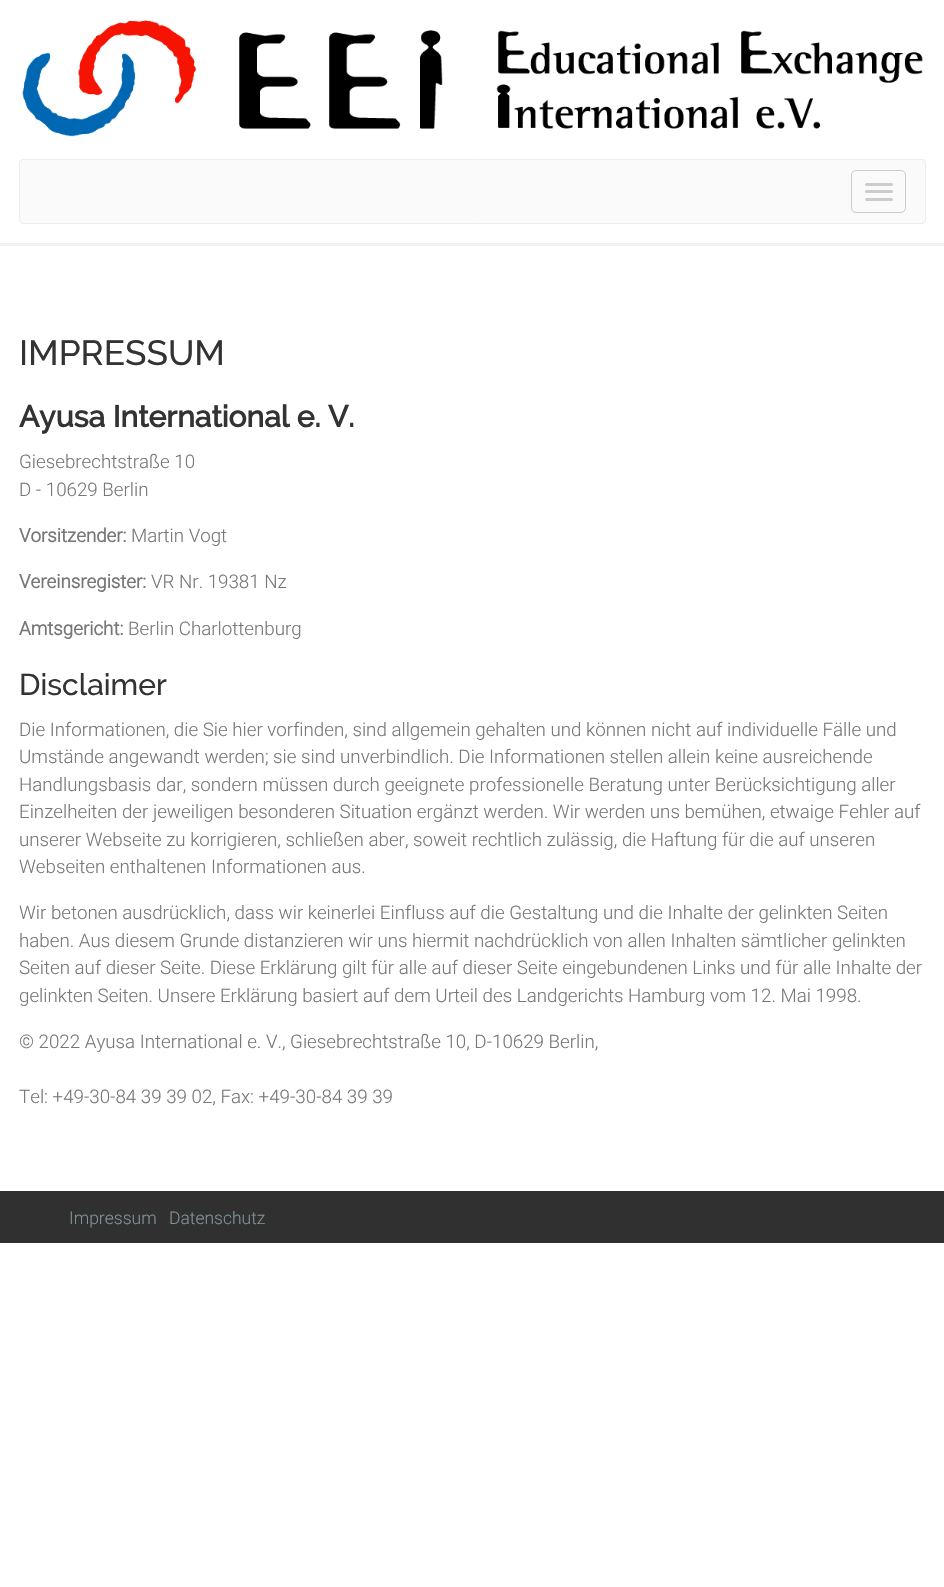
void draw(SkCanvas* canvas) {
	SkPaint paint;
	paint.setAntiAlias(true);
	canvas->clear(0xffffffff);
	paint.setColor(0xfff1f1f1);
	canvas->drawRect(SkRect::MakeXYWH(0, 243, 944, 3), paint);
	canvas->drawImageRect(SkImages::DeferredFromEncodedData(SkData::MakeFromFileName("img1.png")), SkRect::MakeXYWH(22, 20, 901, 117), SkSamplingOptions());
	paint.setColor(0xfffafafa);
	canvas->drawRoundRect(SkRect::MakeXYWH(19.5, 159.5, 906, 64), 3.5, 3.5, paint);
	paint.setStroke(true);
	paint.setStrokeWidth(1);
	paint.setColor(0xffededed);
	canvas->drawRoundRect(SkRect::MakeXYWH(19.5, 159.5, 906, 64), 3.5, 3.5, paint);
	paint.setColor(0xffcccccc);
	canvas->drawRoundRect(SkRect::MakeXYWH(851.5, 170.5, 54, 42), 4.5, 4.5, paint);
	paint.setStroke(false);
	canvas->drawRoundRect(SkRect::MakeXYWH(865, 183, 28, 3), 1.5, 1.5, paint);
	canvas->drawRoundRect(SkRect::MakeXYWH(865, 190, 28, 3), 1.5, 1.5, paint);
	canvas->drawRoundRect(SkRect::MakeXYWH(865, 198, 28, 3), 1.5, 1.5, paint);
	SkFont f1(fontMgr->matchFamilyStyle("Raleway", SkFontStyle(500, SkFontStyle::kNormal_Width, SkFontStyle::kUpright_Slant)), 35);
	f1.setSubpixel(true);
	paint.setColor(0xff333333);
	canvas->drawString("IMPRESSUM", 19, 365, f1, paint);
	SkFont f2(fontMgr->matchFamilyStyle("Raleway", SkFontStyle::Bold()), 30);
	f2.setSubpixel(true);
	canvas->drawString("Ayusa International e. V.", 19, 427, f2, paint);
	SkFont f3(fontMgr->matchFamilyStyle("Roboto", SkFontStyle(300, SkFontStyle::kNormal_Width, SkFontStyle::kUpright_Slant)), 18.75);
	f3.setSubpixel(true);
	paint.setColor(0xff777777);
	canvas->drawString("Giesebrechtstraße 10", 19, 468, f3, paint);
	canvas->drawString("D - 10629 Berlin", 19, 496, f3, paint);
	SkFont f4(fontMgr->matchFamilyStyle("Roboto", SkFontStyle::Bold()), 18.75);
	f4.setSubpixel(true);
	canvas->drawString("Vorsitzender:", 19, 542, f4, paint);
	canvas->drawString("Martin Vogt", 131, 542, f3, paint);
	canvas->drawString("Vereinsregister:", 19, 588, f4, paint);
	canvas->drawString("VR Nr. 19381 Nz", 151, 588, f3, paint);
	canvas->drawString("Amtsgericht:", 19, 635, f4, paint);
	canvas->drawString("Berlin Charlottenburg", 128, 635, f3, paint);
	SkFont f5(fontMgr->matchFamilyStyle("Raleway", SkFontStyle(500, SkFontStyle::kNormal_Width, SkFontStyle::kUpright_Slant)), 30);
	f5.setSubpixel(true);
	paint.setColor(0xff333333);
	canvas->drawString("Disclaimer", 19, 695, f5, paint);
	paint.setColor(0xff777777);
	canvas->drawString("Die Informationen, die Sie hier vorfinden, sind allgemein gehalten und können nicht auf individuelle Fälle und", 19, 736, f3, paint);
	canvas->drawString("Umstände angewandt werden; sie sind unverbindlich. Die Informationen stellen allein keine ausreichende", 19, 763, f3, paint);
	canvas->drawString("Handlungsbasis dar, sondern müssen durch geeignete professionelle Beratung unter Berücksichtigung aller", 19, 791, f3, paint);
	canvas->drawString("Einzelheiten der jeweiligen besonderen Situation ergänzt werden. Wir werden uns bemühen, etwaige Fehler auf", 19, 818, f3, paint);
	canvas->drawString("unserer Webseite zu korrigieren, schließen aber, soweit rechtlich zulässig, die Haftung für die auf unseren", 19, 846, f3, paint);
	canvas->drawString("Webseiten enthaltenen Informationen aus.", 19, 873, f3, paint);
	canvas->drawString("Wir betonen ausdrücklich, dass wir keinerlei Einfluss auf die Gestaltung und die Inhalte der gelinkten Seiten", 19, 919, f3, paint);
	canvas->drawString("haben. Aus diesem Grunde distanzieren wir uns hiermit nachdrücklich von allen Inhalten sämtlicher gelinkten", 19, 947, f3, paint);
	canvas->drawString("Seiten auf dieser Seite. Diese Erklärung gilt für alle auf dieser Seite eingebundenen Links und für alle Inhalte der", 19, 974, f3, paint);
	canvas->drawString("gelinkten Seiten. Unsere Erklärung basiert auf dem Urteil des Landgerichts Hamburg vom 12. Mai 1998.", 19, 1002, f3, paint);
	canvas->drawString("© 2022 Ayusa International e. V., Giesebrechtstraße 10, D-10629 Berlin,", 19, 1048, f3, paint);
	canvas->drawString("Tel: +49-30-84 39 39 02, Fax: +49-30-84 39 39", 19, 1103, f3, paint);
	paint.setColor(0xff303030);
	canvas->drawRect(SkRect::MakeXYWH(0, 1191, 944, 52), paint);
	SkFont f6(fontMgr->matchFamilyStyle("Roboto", SkFontStyle(300, SkFontStyle::kNormal_Width, SkFontStyle::kUpright_Slant)), 17.5);
	f6.setSubpixel(true);
	paint.setColor(0xff809398);
	canvas->drawString("Impressum", 69, 1224, f6, paint);
	canvas->drawString("Datenschutz", 169, 1224, f6, paint);
}
